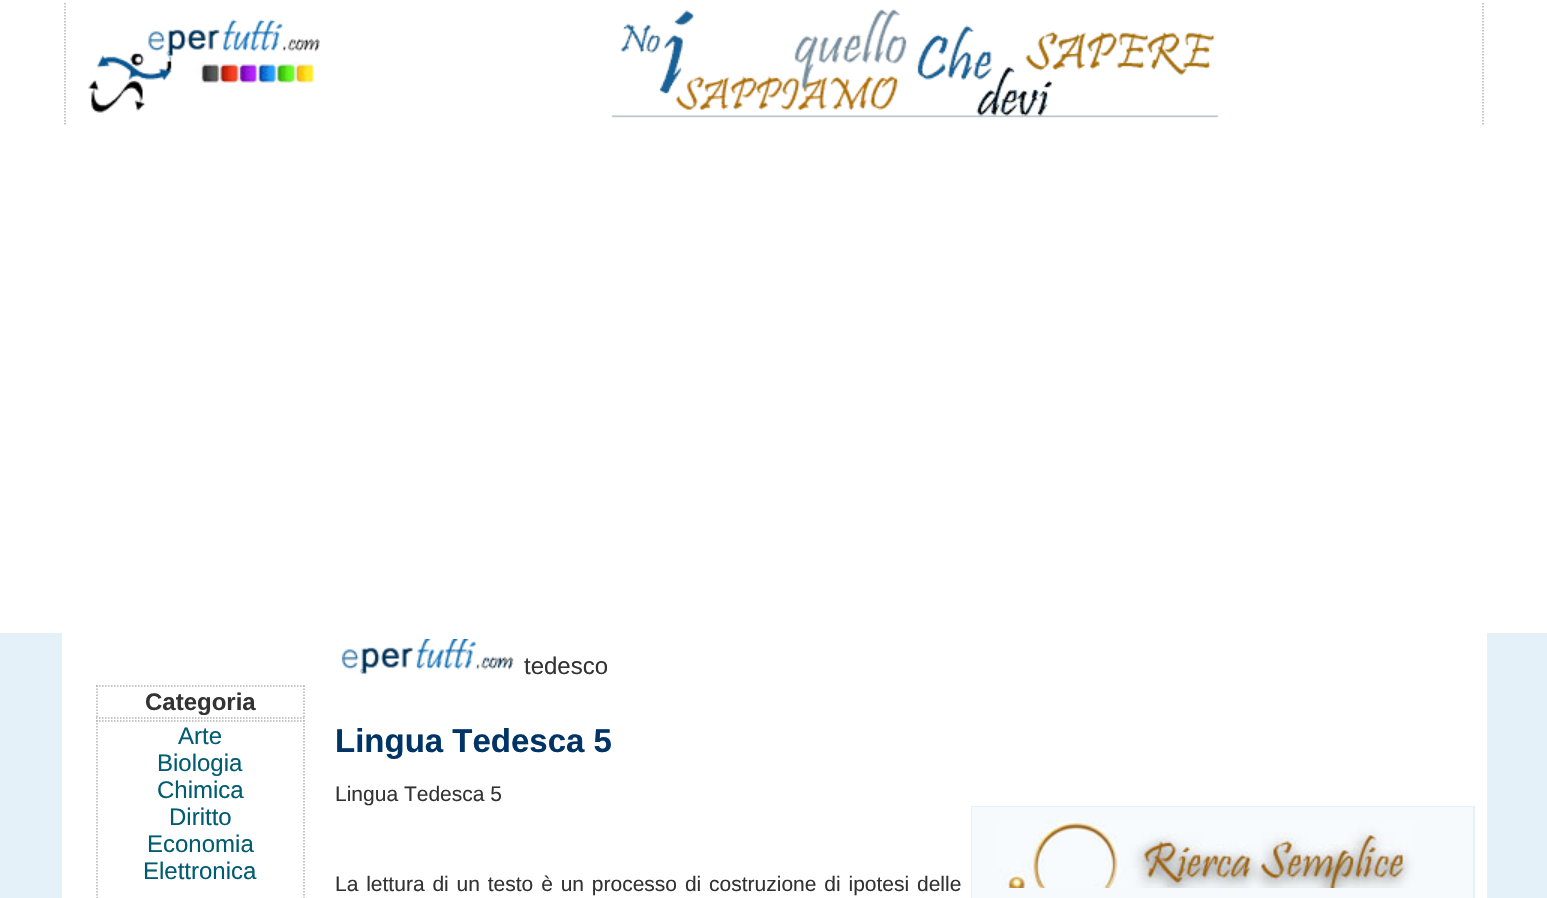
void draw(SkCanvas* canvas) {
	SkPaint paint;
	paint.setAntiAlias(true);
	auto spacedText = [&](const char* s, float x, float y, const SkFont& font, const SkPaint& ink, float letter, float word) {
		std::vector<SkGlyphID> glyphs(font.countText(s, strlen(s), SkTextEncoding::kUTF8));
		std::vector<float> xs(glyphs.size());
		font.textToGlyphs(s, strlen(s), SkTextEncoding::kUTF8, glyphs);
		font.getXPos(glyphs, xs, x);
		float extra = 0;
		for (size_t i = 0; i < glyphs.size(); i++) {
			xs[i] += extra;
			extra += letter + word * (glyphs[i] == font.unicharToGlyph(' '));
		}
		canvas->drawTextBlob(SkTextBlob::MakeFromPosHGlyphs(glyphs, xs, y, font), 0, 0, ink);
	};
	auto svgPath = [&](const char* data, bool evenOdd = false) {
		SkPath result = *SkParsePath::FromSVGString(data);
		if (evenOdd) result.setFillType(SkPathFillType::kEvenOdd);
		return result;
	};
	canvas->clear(0xffe4f1f8);
	paint.setColor(0xffffffff);
	canvas->drawRect(SkRect::MakeXYWH(0, 0, 1547, 633), paint);
	paint.setStroke(true);
	paint.setStrokeWidth(1.5);
	paint.setColor(0xffb4b4b4);
	paint.setPathEffect(SkDashPathEffect::Make({{1.5f, 1.5f}}, 0));
	canvas->drawPath(svgPath("M65 3V126"), paint);
	paint.setPathEffect(nullptr);
	canvas->drawImageRect(SkImages::DeferredFromEncodedData(SkData::MakeFromFileName("img1.png")), SkRect::MakeXYWH(88, 19, 232, 94), SkSamplingOptions());
	paint.setPathEffect(SkDashPathEffect::Make({{1.5f, 1.5f}}, 0));
	canvas->drawPath(svgPath("M1483 3V126"), paint);
	paint.setPathEffect(nullptr);
	canvas->drawImageRect(SkImages::DeferredFromEncodedData(SkData::MakeFromFileName("img2.png")), SkRect::MakeXYWH(611, 9, 608, 109), SkSamplingOptions());
	paint.setStroke(false);
	paint.setColor(0xffffffff);
	canvas->drawRect(SkRect::MakeXYWH(62, 633, 1425, 265), paint);
	paint.setStroke(true);
	paint.setColor(0xffb4b4b4);
	paint.setPathEffect(SkDashPathEffect::Make({{1.5f, 1.5f}}, 0));
	canvas->drawPath(svgPath("M96 686H304.5"), paint);
	paint.setPathEffect(nullptr);
	paint.setPathEffect(SkDashPathEffect::Make({{1.5f, 1.5f}}, 0));
	canvas->drawPath(svgPath("M304 685.5V718.5"), paint);
	paint.setPathEffect(nullptr);
	paint.setPathEffect(SkDashPathEffect::Make({{1.5f, 1.5f}}, 0));
	canvas->drawPath(svgPath("M96 718H304.5"), paint);
	paint.setPathEffect(nullptr);
	paint.setPathEffect(SkDashPathEffect::Make({{1.5f, 1.5f}}, 0));
	canvas->drawPath(svgPath("M97 685.5V718.5"), paint);
	paint.setPathEffect(nullptr);
	SkFont f1(fontMgr->matchFamilyStyle("Liberation Sans", SkFontStyle::Bold()), 24);
	f1.setSubpixel(true);
	paint.setStroke(false);
	paint.setColor(0xff333333);
	canvas->drawString("Categoria", 145, 710, f1, paint);
	paint.setStroke(true);
	paint.setColor(0xffb4b4b4);
	paint.setPathEffect(SkDashPathEffect::Make({{1.5f, 1.5f}}, 0));
	canvas->drawPath(svgPath("M96 721H304.5"), paint);
	paint.setPathEffect(nullptr);
	paint.setPathEffect(SkDashPathEffect::Make({{1.5f, 1.5f}}, 0));
	canvas->drawPath(svgPath("M304 720V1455"), paint);
	paint.setPathEffect(nullptr);
	paint.setPathEffect(SkDashPathEffect::Make({{1.5f, 1.5f}}, 0));
	canvas->drawPath(svgPath("M97 720V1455"), paint);
	paint.setPathEffect(nullptr);
	SkFont f2(fontMgr->matchFamilyStyle("Liberation Sans", SkFontStyle::Normal()), 24);
	f2.setSubpixel(true);
	paint.setStroke(false);
	paint.setColor(0xff015c72);
	canvas->drawString("Arte", 178, 744, f2, paint);
	canvas->drawString("Biologia", 157, 771, f2, paint);
	canvas->drawString("Chimica", 157, 798, f2, paint);
	canvas->drawString("Diritto", 169, 825, f2, paint);
	canvas->drawString("Economia", 147, 852, f2, paint);
	canvas->drawString("Elettronica", 143, 879, f2, paint);
	canvas->drawImageRect(SkImages::DeferredFromEncodedData(SkData::MakeFromFileName("img3.png")), SkRect::MakeXYWH(341, 639, 173, 35), SkSamplingOptions());
	paint.setColor(0xff333333);
	canvas->drawString("tedesco", 524, 674, f2, paint);
	SkFont f3(fontMgr->matchFamilyStyle("Liberation Sans", SkFontStyle::Bold()), 33);
	f3.setSubpixel(true);
	paint.setColor(0xff003366);
	canvas->drawString("Lingua Tedesca 5", 335, 752, f3, paint);
	SkFont f4(fontMgr->matchFamilyStyle("Liberation Sans", SkFontStyle::Normal()), 21);
	f4.setSubpixel(true);
	paint.setColor(0xff333333);
	canvas->drawString("Lingua Tedesca 5", 335, 801, f4, paint);
	spacedText("La lettura di un testo è un processo di costruzione di ipotesi delle", 335, 891, f4, paint, 0, 2);
	paint.setColor(0xffe4f1f8);
	canvas->drawRect(SkRect::MakeXYWH(971, 806, 504, 92), paint);
	paint.setColor(0xfff7fafc);
	canvas->drawRect(SkRect::MakeXYWH(972, 807, 501, 91), paint);
	canvas->drawImageRect(SkImages::DeferredFromEncodedData(SkData::MakeFromFileName("img4.png")), SkRect::MakeXYWH(998, 820, 416, 68), SkSamplingOptions());
}
